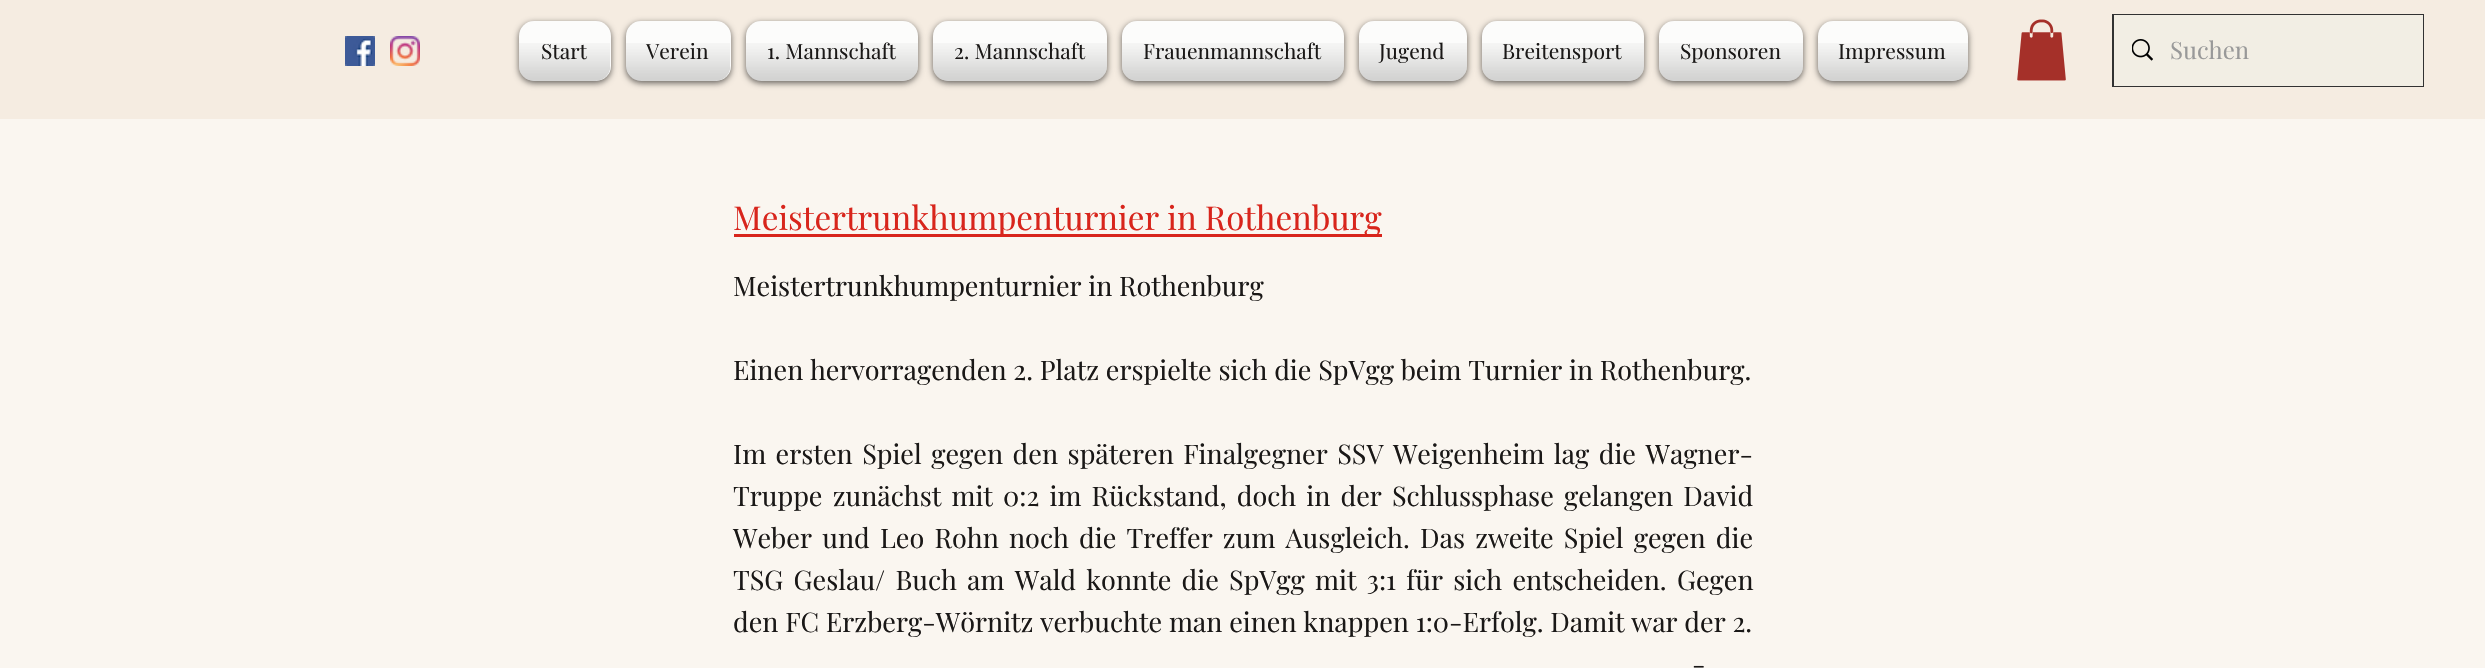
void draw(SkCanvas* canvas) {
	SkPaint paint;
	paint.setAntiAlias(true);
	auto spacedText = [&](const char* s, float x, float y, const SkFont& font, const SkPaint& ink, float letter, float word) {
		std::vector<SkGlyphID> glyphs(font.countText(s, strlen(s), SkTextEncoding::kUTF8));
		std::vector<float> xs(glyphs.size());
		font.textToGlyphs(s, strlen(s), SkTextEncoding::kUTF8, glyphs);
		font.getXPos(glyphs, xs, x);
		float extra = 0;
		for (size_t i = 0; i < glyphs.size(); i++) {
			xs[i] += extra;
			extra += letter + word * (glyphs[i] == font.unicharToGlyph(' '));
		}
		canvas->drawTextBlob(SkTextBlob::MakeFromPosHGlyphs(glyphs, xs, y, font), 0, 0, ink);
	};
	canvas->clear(0xfffaf6f0);
	paint.setColor(0xfff5ece1);
	canvas->drawRect(SkRect::MakeXYWH(0, 0, 2485, 119), paint);
	canvas->drawImageRect(SkImages::DeferredFromEncodedData(SkData::MakeFromFileName("img1.png")), SkRect::MakeXYWH(345, 36, 30, 30), SkSamplingOptions());
	canvas->drawImageRect(SkImages::DeferredFromEncodedData(SkData::MakeFromFileName("img2.png")), SkRect::MakeXYWH(390, 36, 30, 30), SkSamplingOptions());
	paint.setColor(0x99000000);
	paint.setMaskFilter(SkMaskFilter::MakeBlur(kNormal_SkBlurStyle, 3));
	canvas->drawRoundRect(SkRect::MakeXYWH(519, 23, 92, 60), 15, 15, paint);
	paint.setMaskFilter(nullptr);
	paint.setColor(0xfffcfcfb);
	canvas->drawRoundRect(SkRect::MakeXYWH(519, 21, 92, 60), 15, 15, paint);
	canvas->drawImageRect(SkImages::DeferredFromEncodedData(SkData::MakeFromFileName("img3.png")), SkRect::MakeXYWH(519, 43, 91, 38), SkSamplingOptions());
	SkFont f1(fontMgr->matchFamilyStyle("Playfair Display", SkFontStyle::Normal()), 21);
	f1.setSubpixel(true);
	paint.setColor(0xff1a1817);
	canvas->drawString("Start", 541, 59, f1, paint);
	paint.setColor(0x99000000);
	paint.setMaskFilter(SkMaskFilter::MakeBlur(kNormal_SkBlurStyle, 3));
	canvas->drawRoundRect(SkRect::MakeXYWH(626, 23, 105, 60), 15, 15, paint);
	paint.setMaskFilter(nullptr);
	paint.setColor(0xfffcfcfb);
	canvas->drawRoundRect(SkRect::MakeXYWH(626, 21, 105, 60), 15, 15, paint);
	canvas->drawImageRect(SkImages::DeferredFromEncodedData(SkData::MakeFromFileName("img4.png")), SkRect::MakeXYWH(626, 43, 104, 38), SkSamplingOptions());
	paint.setColor(0xff1a1817);
	canvas->drawString("Verein", 646, 59, f1, paint);
	paint.setColor(0x99000000);
	paint.setMaskFilter(SkMaskFilter::MakeBlur(kNormal_SkBlurStyle, 3));
	canvas->drawRoundRect(SkRect::MakeXYWH(746, 23, 172, 60), 15, 15, paint);
	paint.setMaskFilter(nullptr);
	paint.setColor(0xfffcfcfb);
	canvas->drawRoundRect(SkRect::MakeXYWH(746, 21, 172, 60), 15, 15, paint);
	canvas->drawImageRect(SkImages::DeferredFromEncodedData(SkData::MakeFromFileName("img5.png")), SkRect::MakeXYWH(746, 43, 172, 38), SkSamplingOptions());
	paint.setColor(0xff1a1817);
	canvas->drawString("1. Mannschaft", 767, 59, f1, paint);
	paint.setColor(0x99000000);
	paint.setMaskFilter(SkMaskFilter::MakeBlur(kNormal_SkBlurStyle, 3));
	canvas->drawRoundRect(SkRect::MakeXYWH(933, 23, 174, 60), 15, 15, paint);
	paint.setMaskFilter(nullptr);
	paint.setColor(0xfffcfcfb);
	canvas->drawRoundRect(SkRect::MakeXYWH(933, 21, 174, 60), 15, 15, paint);
	canvas->drawImageRect(SkImages::DeferredFromEncodedData(SkData::MakeFromFileName("img6.png")), SkRect::MakeXYWH(933, 43, 174, 38), SkSamplingOptions());
	paint.setColor(0xff1a1817);
	canvas->drawString("2. Mannschaft", 954, 59, f1, paint);
	paint.setColor(0x99000000);
	paint.setMaskFilter(SkMaskFilter::MakeBlur(kNormal_SkBlurStyle, 3));
	canvas->drawRoundRect(SkRect::MakeXYWH(1122, 23, 222, 60), 15, 15, paint);
	paint.setMaskFilter(nullptr);
	paint.setColor(0xfffcfcfb);
	canvas->drawRoundRect(SkRect::MakeXYWH(1122, 21, 222, 60), 15, 15, paint);
	canvas->drawImageRect(SkImages::DeferredFromEncodedData(SkData::MakeFromFileName("img7.png")), SkRect::MakeXYWH(1122, 43, 222, 38), SkSamplingOptions());
	paint.setColor(0xff1a1817);
	canvas->drawString("Frauenmannschaft", 1143, 59, f1, paint);
	paint.setColor(0x99000000);
	paint.setMaskFilter(SkMaskFilter::MakeBlur(kNormal_SkBlurStyle, 3));
	canvas->drawRoundRect(SkRect::MakeXYWH(1359, 23, 108, 60), 15, 15, paint);
	paint.setMaskFilter(nullptr);
	paint.setColor(0xfffcfcfb);
	canvas->drawRoundRect(SkRect::MakeXYWH(1359, 21, 108, 60), 15, 15, paint);
	canvas->drawImageRect(SkImages::DeferredFromEncodedData(SkData::MakeFromFileName("img8.png")), SkRect::MakeXYWH(1359, 43, 108, 38), SkSamplingOptions());
	paint.setColor(0xff1a1817);
	canvas->drawString("Jugend", 1379, 59, f1, paint);
	paint.setColor(0x99000000);
	paint.setMaskFilter(SkMaskFilter::MakeBlur(kNormal_SkBlurStyle, 3));
	canvas->drawRoundRect(SkRect::MakeXYWH(1482, 23, 162, 60), 15, 15, paint);
	paint.setMaskFilter(nullptr);
	paint.setColor(0xfffcfcfb);
	canvas->drawRoundRect(SkRect::MakeXYWH(1482, 21, 162, 60), 15, 15, paint);
	canvas->drawImageRect(SkImages::DeferredFromEncodedData(SkData::MakeFromFileName("img9.png")), SkRect::MakeXYWH(1482, 43, 162, 38), SkSamplingOptions());
	paint.setColor(0xff1a1817);
	canvas->drawString("Breitensport", 1502, 59, f1, paint);
	paint.setColor(0x99000000);
	paint.setMaskFilter(SkMaskFilter::MakeBlur(kNormal_SkBlurStyle, 3));
	canvas->drawRoundRect(SkRect::MakeXYWH(1659, 23, 144, 60), 15, 15, paint);
	paint.setMaskFilter(nullptr);
	paint.setColor(0xfffcfcfb);
	canvas->drawRoundRect(SkRect::MakeXYWH(1659, 21, 144, 60), 15, 15, paint);
	canvas->drawImageRect(SkImages::DeferredFromEncodedData(SkData::MakeFromFileName("img10.png")), SkRect::MakeXYWH(1659, 43, 144, 38), SkSamplingOptions());
	paint.setColor(0xff1a1817);
	canvas->drawString("Sponsoren", 1680, 59, f1, paint);
	paint.setColor(0x99000000);
	paint.setMaskFilter(SkMaskFilter::MakeBlur(kNormal_SkBlurStyle, 3));
	canvas->drawRoundRect(SkRect::MakeXYWH(1818, 23, 150, 60), 15, 15, paint);
	paint.setMaskFilter(nullptr);
	paint.setColor(0xfffcfcfb);
	canvas->drawRoundRect(SkRect::MakeXYWH(1818, 21, 150, 60), 15, 15, paint);
	canvas->drawImageRect(SkImages::DeferredFromEncodedData(SkData::MakeFromFileName("img11.png")), SkRect::MakeXYWH(1818, 43, 150, 38), SkSamplingOptions());
	paint.setColor(0xff1a1817);
	canvas->drawString("Impressum", 1838, 59, f1, paint);
	canvas->drawImageRect(SkImages::DeferredFromEncodedData(SkData::MakeFromFileName("img12.png")), SkRect::MakeXYWH(2017, 19, 49, 62), SkSamplingOptions());
	paint.setStroke(true);
	paint.setStrokeWidth(2);
	paint.setColor(0xff323232);
	canvas->drawRect(SkRect::MakeXYWH(2113, 15, 310, 71), paint);
	paint.setStroke(false);
	paint.setColor(0xfff2eee4);
	canvas->drawRect(SkRect::MakeXYWH(2114, 15, 309, 71), paint);
	canvas->drawImageRect(SkImages::DeferredFromEncodedData(SkData::MakeFromFileName("img13.png")), SkRect::MakeXYWH(2132, 39, 21, 22), SkSamplingOptions());
	SkFont f2(fontMgr->matchFamilyStyle("Playfair Display", SkFontStyle::Normal()), 24);
	f2.setSubpixel(true);
	paint.setColor(0xff999999);
	canvas->drawString("Suchen", 2170, 59, f2, paint);
	paint.setColor(0xffd8251c);
	canvas->drawRect(SkRect::MakeXYWH(734, 234, 648, 3), paint);
	SkFont f3(fontMgr->matchFamilyStyle("Playfair Display", SkFontStyle::Normal()), 33);
	f3.setSubpixel(true);
	canvas->drawString("Meistertrunkhumpenturnier in Rothenburg", 733, 230, f3, paint);
	SkFont f4(fontMgr->matchFamilyStyle("Playfair Display", SkFontStyle::Normal()), 27);
	f4.setSubpixel(true);
	paint.setColor(0xff1a1817);
	canvas->drawString("Meistertrunkhumpenturnier in Rothenburg", 733, 296, f4, paint);
	canvas->drawString("Einen hervorragenden 2. Platz erspielte sich die SpVgg beim Turnier in Rothenburg.", 733, 380, f4, paint);
	spacedText("Im ersten Spiel gegen den späteren Finalgegner SSV Weigenheim lag die Wagner-", 733, 464, f4, paint, 0, 2.75);
	spacedText("Truppe zunächst mit 0:2 im Rückstand, doch in der Schlussphase gelangen David", 733, 506, f4, paint, 0, 3.4);
	spacedText("Weber und Leo Rohn noch die Treffer zum Ausgleich. Das zweite Spiel gegen die", 733, 548, f4, paint, 0, 3.5);
	spacedText("TSG Geslau/ Buch am Wald konnte die SpVgg mit 3:1 für sich entscheiden. Gegen", 733, 590, f4, paint, 0, 3.5);
	canvas->drawString("den FC Erzberg-Wörnitz verbuchte man einen knappen 1:0-Erfolg. Damit war der 2.", 733, 632, f4, paint);
	spacedText("-", 1692, 674, f4, paint, 0, 7);
}
